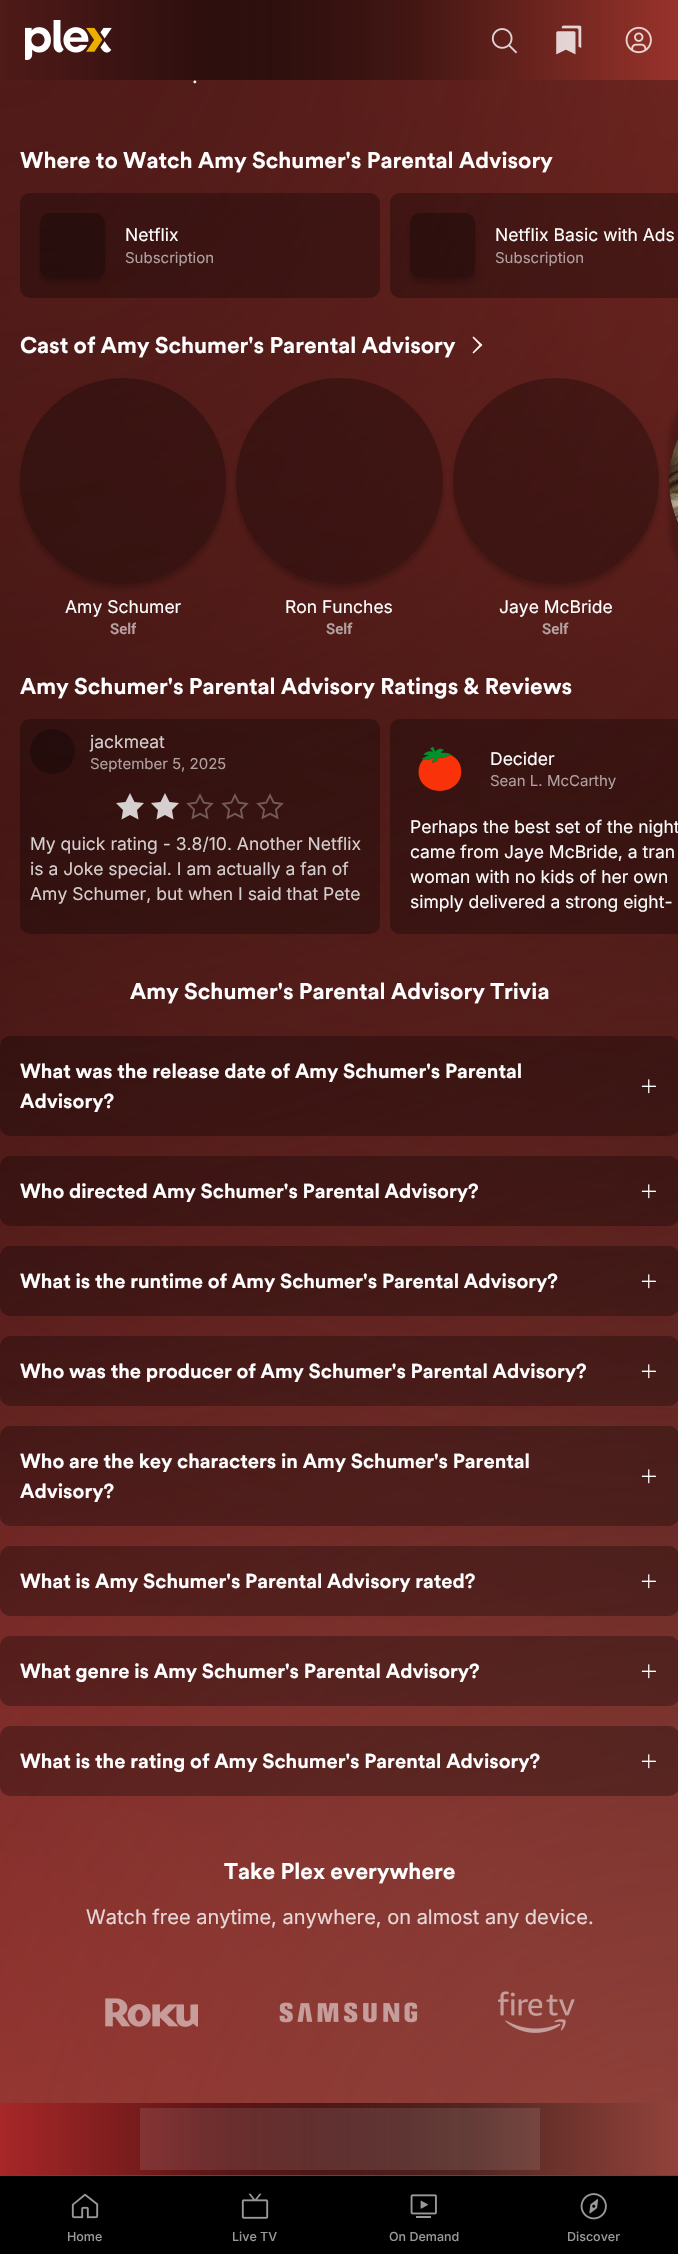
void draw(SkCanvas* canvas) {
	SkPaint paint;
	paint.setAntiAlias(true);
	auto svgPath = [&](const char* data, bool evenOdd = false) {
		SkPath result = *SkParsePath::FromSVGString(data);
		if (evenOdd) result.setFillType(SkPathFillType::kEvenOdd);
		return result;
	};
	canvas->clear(0xffffffff);
	{
		const SkColor colors[] = {0xff000000, 0xff98332b};
		const float stops[] = {0.3, 1};
		const SkPoint ends[] = {{0, 40}, {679, 40}};
		paint.setShader(SkGradientShader::MakeLinear(ends, colors, stops, 2, SkTileMode::kClamp));
		paint.setAlpha(255);
	}
	canvas->drawRect(SkRect::MakeXYWH(3, 0, 675, 80), paint);
	{
		const SkColor colors[] = {0xff4f1a18, 0x004f1a18};
		const float stops[] = {0, 0.7};
		const SkPoint ends[] = {{0, 40}, {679, 40}};
		paint.setShader(SkGradientShader::MakeLinear(ends, colors, stops, 2, SkTileMode::kClamp));
		paint.setAlpha(255);
	}
	canvas->drawRect(SkRect::MakeXYWH(0, 0, 400, 80), paint);
	canvas->drawImageRect(SkImages::DeferredFromEncodedData(SkData::MakeFromFileName("img1.png")), SkRect::MakeXYWH(25, 20, 87, 40), SkSamplingOptions());
	canvas->drawImageRect(SkImages::DeferredFromEncodedData(SkData::MakeFromFileName("img2.png")), SkRect::MakeXYWH(491, 28, 27, 26), SkSamplingOptions());
	canvas->drawImageRect(SkImages::DeferredFromEncodedData(SkData::MakeFromFileName("img3.png")), SkRect::MakeXYWH(556, 25, 26, 30), SkSamplingOptions());
	canvas->drawImageRect(SkImages::DeferredFromEncodedData(SkData::MakeFromFileName("img4.png")), SkRect::MakeXYWH(625, 26, 27, 28), SkSamplingOptions());
	{
		const SkColor colors[] = {0xffa72728, 0xff000000};
		const float stops[] = {0, 0.7};
		paint.setShader(SkGradientShader::MakeRadial({0, 2255}, 2255, colors, stops, 2, SkTileMode::kClamp));
		paint.setAlpha(255);
	}
	canvas->drawRect(SkRect::MakeXYWH(0, 80, 678, 2023), paint);
	{
		const SkColor colors[] = {0xff91433b, 0x0091433b};
		const float stops[] = {0, 0.7};
		paint.setShader(SkGradientShader::MakeRadial({679, 2255}, 2255, colors, stops, 2, SkTileMode::kClamp));
		paint.setAlpha(255);
	}
	canvas->drawRect(SkRect::MakeXYWH(0, 710, 678, 1393), paint);
	{
		const SkColor colors[] = {0xff98332b, 0x0098332b};
		const float stops[] = {0, 0.7};
		paint.setShader(SkGradientShader::MakeRadial({679, 0}, 2255, colors, stops, 2, SkTileMode::kClamp));
		paint.setAlpha(255);
	}
	canvas->drawRect(SkRect::MakeXYWH(0, 80, 678, 1422), paint);
	{
		const SkColor colors[] = {0xff4f1a18, 0x004f1a18};
		const float stops[] = {0, 0.7};
		paint.setShader(SkGradientShader::MakeRadial({0, 0}, 2255, colors, stops, 2, SkTileMode::kClamp));
		paint.setAlpha(255);
	}
	canvas->drawRect(SkRect::MakeXYWH(0, 80, 678, 1388), paint);
	SkFont f1(fontMgr->matchFamilyStyle("Inter", SkFontStyle::Normal()), 20);
	f1.setSubpixel(true);
	paint.setShader(nullptr);
	paint.setColor(0xffffffff);
	canvas->drawString(".", 192, 83, f1, paint);
	SkFont f2(fontMgr->matchFamilyStyle("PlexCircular", SkFontStyle::Bold()), 22.5);
	f2.setSubpixel(true);
	canvas->drawString("Where to Watch Amy Schumer's Parental Advisory", 20, 168, f2, paint);
	paint.setColor(0x4d000000);
	canvas->drawRoundRect(SkRect::MakeXYWH(20, 193, 360, 105), 10, 10, paint);
	canvas->save();
	canvas->clipPath(svgPath("M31 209H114V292H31ZM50 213H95C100.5 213 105 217.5 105 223V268C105 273.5 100.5 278 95 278H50C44.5 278 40 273.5 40 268V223C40 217.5 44.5 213 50 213Z", true), true);
	paint.setColor(0x33000000);
	paint.setMaskFilter(SkMaskFilter::MakeBlur(kNormal_SkBlurStyle, 2.5));
	canvas->drawRoundRect(SkRect::MakeXYWH(40, 218, 65, 65), 10, 10, paint);
	paint.setMaskFilter(nullptr);
	canvas->restore();
	paint.setColor(0x4d000000);
	canvas->drawRoundRect(SkRect::MakeXYWH(40, 213, 65, 65), 10, 10, paint);
	SkFont f3(fontMgr->matchFamilyStyle("Inter", SkFontStyle::Normal()), 17.5);
	f3.setSubpixel(true);
	paint.setColor(0xffffffff);
	canvas->drawString("Netflix", 125, 241, f3, paint);
	SkFont f4(fontMgr->matchFamilyStyle("Inter", SkFontStyle::Normal()), 15);
	f4.setSubpixel(true);
	paint.setColor(0xffb0a1a0);
	canvas->drawString("Subscription", 125, 263, f4, paint);
	paint.setColor(0x4d000000);
	canvas->drawPath(svgPath("M400 193H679V298H400C394.5 298 390 293.5 390 288V203C390 197.5 394.5 193 400 193Z"), paint);
	canvas->save();
	canvas->clipPath(svgPath("M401 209H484V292H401ZM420 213H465C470.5 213 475 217.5 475 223V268C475 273.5 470.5 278 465 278H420C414.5 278 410 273.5 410 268V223C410 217.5 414.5 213 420 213Z", true), true);
	paint.setColor(0x33000000);
	paint.setMaskFilter(SkMaskFilter::MakeBlur(kNormal_SkBlurStyle, 2.5));
	canvas->drawRoundRect(SkRect::MakeXYWH(410, 218, 65, 65), 10, 10, paint);
	paint.setMaskFilter(nullptr);
	canvas->restore();
	paint.setColor(0x4d000000);
	canvas->drawRoundRect(SkRect::MakeXYWH(410, 213, 65, 65), 10, 10, paint);
	paint.setColor(0xffffffff);
	canvas->drawString("Netflix Basic with Ads", 495, 241, f3, paint);
	paint.setColor(0xffb0a1a0);
	canvas->drawString("Subscription", 495, 263, f4, paint);
	paint.setColor(0xffffffff);
	canvas->drawString("Cast of Amy Schumer's Parental Advisory", 20, 353, f2, paint);
	canvas->drawPath(svgPath("M482.5 345L473.5 353.5L472.5 352.5L479.5 345L472.5 337.5L473.5 336.5Z"), paint);
	paint.setColor(0x33000000);
	paint.setMaskFilter(SkMaskFilter::MakeBlur(kNormal_SkBlurStyle, 2.5));
	canvas->drawRoundRect(SkRect::MakeXYWH(669, 383, 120, 206), 103, 103, paint);
	paint.setMaskFilter(nullptr);
	paint.setColor(0x4d000000);
	canvas->drawPath(svgPath("M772 378H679V584H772C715 584 669 538 669 481C669 424 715 378 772 378Z"), paint);
	canvas->drawImageRect(SkImages::DeferredFromEncodedData(SkData::MakeFromFileName("img5.png")), SkRect::MakeXYWH(669, 439, 9, 84), SkSamplingOptions());
	canvas->save();
	canvas->clipPath(svgPath("M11 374H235V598H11ZM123 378C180 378 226 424 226 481C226 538 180 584 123 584C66 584 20 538 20 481C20 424 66 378 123 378Z", true), true);
	paint.setColor(0x33000000);
	paint.setMaskFilter(SkMaskFilter::MakeBlur(kNormal_SkBlurStyle, 2.5));
	canvas->drawRoundRect(SkRect::MakeXYWH(20, 383, 206, 206), 103, 103, paint);
	paint.setMaskFilter(nullptr);
	canvas->restore();
	paint.setColor(0x4d000000);
	canvas->drawCircle(123, 481, 103, paint);
	paint.setColor(0xffffffff);
	canvas->drawString("Amy Schumer", 65, 613, f3, paint);
	canvas->save();
	canvas->clipRect(SkRect::MakeXYWH(110, 619, 26, 20));
	SkFont f5(fontMgr->matchFamilyStyle("Roboto", SkFontStyle(600, SkFontStyle::kNormal_Width, SkFontStyle::kUpright_Slant)), 15);
	f5.setSubpixel(true);
	paint.setColor(0xffb7a3a2);
	canvas->drawString("Self", 110, 634, f5, paint);
	canvas->restore();
	canvas->save();
	canvas->clipPath(svgPath("M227 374H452V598H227ZM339 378H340C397 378 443 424 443 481C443 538 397 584 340 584H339C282 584 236 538 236 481C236 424 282 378 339 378Z", true), true);
	paint.setColor(0x33000000);
	paint.setMaskFilter(SkMaskFilter::MakeBlur(kNormal_SkBlurStyle, 2.5));
	canvas->drawRoundRect(SkRect::MakeXYWH(236, 383, 207, 206), 103, 103, paint);
	paint.setMaskFilter(nullptr);
	canvas->restore();
	paint.setColor(0x4d000000);
	canvas->drawRoundRect(SkRect::MakeXYWH(236, 378, 207, 206), 103, 103, paint);
	paint.setColor(0xffffffff);
	canvas->drawString("Ron Funches", 285, 613, f3, paint);
	paint.setColor(0xffb7a3a2);
	canvas->drawString("Self", 326, 634, f5, paint);
	canvas->save();
	canvas->clipPath(svgPath("M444 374H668V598H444ZM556 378C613 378 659 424 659 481C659 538 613 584 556 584C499 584 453 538 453 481C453 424 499 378 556 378Z", true), true);
	paint.setColor(0x33000000);
	paint.setMaskFilter(SkMaskFilter::MakeBlur(kNormal_SkBlurStyle, 2.5));
	canvas->drawRoundRect(SkRect::MakeXYWH(453, 383, 206, 206), 103, 103, paint);
	paint.setMaskFilter(nullptr);
	canvas->restore();
	paint.setColor(0x4d000000);
	canvas->drawCircle(556, 481, 103, paint);
	paint.setColor(0xffffffff);
	canvas->drawString("Jaye McBride", 499, 613, f3, paint);
	paint.setColor(0xffb7a3a2);
	canvas->drawString("Self", 542, 634, f5, paint);
	paint.setColor(0xffffffff);
	canvas->drawString("Amy Schumer's Parental Advisory Ratings & Reviews", 20, 694, f2, paint);
	paint.setColor(0x4d000000);
	canvas->drawRoundRect(SkRect::MakeXYWH(20, 719, 360, 215), 10, 10, paint);
	canvas->drawCircle(52.5, 751.5, 22.5, paint);
	paint.setColor(0xffd6cfcf);
	canvas->drawString("jackmeat", 90, 748, f3, paint);
	paint.setColor(0xffb0a1a0);
	canvas->drawString("September 5, 2025", 90, 769, f4, paint);
	paint.setColor(0xffd6cfcf);
	canvas->drawPath(svgPath("M130 793L125.5 802L116 803L123 810L121.5 819.5L130 815L138.5 819.5L137 810L144 803L134.5 802ZM165 793L160.5 802L151 803L158 810L156.5 819.5L165 815L173.5 819.5L172 810L179 803L169.5 802Z"), paint);
	canvas->drawImageRect(SkImages::DeferredFromEncodedData(SkData::MakeFromFileName("img6.png")), SkRect::MakeXYWH(186, 793, 28, 27), SkSamplingOptions());
	canvas->drawImageRect(SkImages::DeferredFromEncodedData(SkData::MakeFromFileName("img7.png")), SkRect::MakeXYWH(221, 793, 28, 27), SkSamplingOptions());
	canvas->drawImageRect(SkImages::DeferredFromEncodedData(SkData::MakeFromFileName("img8.png")), SkRect::MakeXYWH(256, 793, 28, 27), SkSamplingOptions());
	canvas->drawString("My quick rating - 3.8/10. Another Netflix", 30, 850, f3, paint);
	canvas->drawString("is a Joke special. I am actually a fan of", 30, 875, f3, paint);
	canvas->drawString("Amy Schumer, but when I said that Pete", 30, 900, f3, paint);
	paint.setColor(0x4d000000);
	canvas->drawPath(svgPath("M400 719H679V934H400C394.5 934 390 929.5 390 924V729C390 723.5 394.5 719 400 719Z"), paint);
	canvas->drawImageRect(SkImages::DeferredFromEncodedData(SkData::MakeFromFileName("img9.png")), SkRect::MakeXYWH(418, 746, 44, 45), SkSamplingOptions());
	paint.setColor(0xffffffff);
	canvas->drawString("Decider", 490, 765, f3, paint);
	paint.setColor(0xffb0a1a0);
	canvas->drawString("Sean L. McCarthy", 490, 786, f4, paint);
	paint.setColor(0xffffffff);
	canvas->drawString("Perhaps the best set of the night", 410, 833, f3, paint);
	canvas->drawString("came from Jaye McBride, a tran", 410, 858, f3, paint);
	canvas->drawString("woman with no kids of her own", 410, 883, f3, paint);
	canvas->drawString("simply delivered a strong eight-", 410, 908, f3, paint);
	canvas->drawString("Amy Schumer's Parental Advisory Trivia", 130, 999, f2, paint);
	paint.setColor(0x4d000000);
	canvas->drawRoundRect(SkRect::MakeXYWH(0, 1036, 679, 100), 10, 10, paint);
	SkFont f6(fontMgr->matchFamilyStyle("PlexCircular", SkFontStyle::Bold()), 20);
	f6.setSubpixel(true);
	paint.setColor(0xffffffff);
	canvas->drawString("What was the release date of Amy Schumer's Parental", 20, 1078, f6, paint);
	canvas->drawString("Advisory?", 20, 1108, f6, paint);
	canvas->drawImageRect(SkImages::DeferredFromEncodedData(SkData::MakeFromFileName("img10.png")), SkRect::MakeXYWH(641, 1079, 15, 15), SkSamplingOptions());
	canvas->drawRect(SkRect::MakeXYWH(642, 1086, 14, 1), paint);
	paint.setColor(0x4d000000);
	canvas->drawRoundRect(SkRect::MakeXYWH(0, 1156, 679, 70), 10, 10, paint);
	paint.setColor(0xffffffff);
	canvas->drawString("Who directed Amy Schumer's Parental Advisory?", 20, 1198, f6, paint);
	canvas->drawImageRect(SkImages::DeferredFromEncodedData(SkData::MakeFromFileName("img11.png")), SkRect::MakeXYWH(641, 1184, 15, 15), SkSamplingOptions());
	canvas->drawRect(SkRect::MakeXYWH(642, 1191, 14, 1), paint);
	paint.setColor(0x4d000000);
	canvas->drawRoundRect(SkRect::MakeXYWH(0, 1246, 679, 70), 10, 10, paint);
	paint.setColor(0xffffffff);
	canvas->drawString("What is the runtime of Amy Schumer's Parental Advisory?", 20, 1288, f6, paint);
	canvas->drawImageRect(SkImages::DeferredFromEncodedData(SkData::MakeFromFileName("img12.png")), SkRect::MakeXYWH(641, 1274, 15, 15), SkSamplingOptions());
	canvas->drawRect(SkRect::MakeXYWH(642, 1281, 14, 1), paint);
	paint.setColor(0x4d000000);
	canvas->drawRoundRect(SkRect::MakeXYWH(0, 1336, 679, 70), 10, 10, paint);
	paint.setColor(0xffffffff);
	canvas->drawString("Who was the producer of Amy Schumer's Parental Advisory?", 20, 1378, f6, paint);
	canvas->drawImageRect(SkImages::DeferredFromEncodedData(SkData::MakeFromFileName("img13.png")), SkRect::MakeXYWH(641, 1364, 15, 15), SkSamplingOptions());
	canvas->drawRect(SkRect::MakeXYWH(642, 1371, 14, 1), paint);
	paint.setColor(0x4d000000);
	canvas->drawRoundRect(SkRect::MakeXYWH(0, 1426, 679, 100), 10, 10, paint);
	paint.setColor(0xffffffff);
	canvas->drawString("Who are the key characters in Amy Schumer's Parental", 20, 1468, f6, paint);
	canvas->drawString("Advisory?", 20, 1498, f6, paint);
	canvas->drawImageRect(SkImages::DeferredFromEncodedData(SkData::MakeFromFileName("img14.png")), SkRect::MakeXYWH(641, 1469, 15, 15), SkSamplingOptions());
	canvas->drawRect(SkRect::MakeXYWH(642, 1476, 14, 1), paint);
	paint.setColor(0x4d000000);
	canvas->drawRoundRect(SkRect::MakeXYWH(0, 1546, 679, 70), 10, 10, paint);
	paint.setColor(0xffffffff);
	canvas->drawString("What is Amy Schumer's Parental Advisory rated?", 20, 1588, f6, paint);
	canvas->drawImageRect(SkImages::DeferredFromEncodedData(SkData::MakeFromFileName("img15.png")), SkRect::MakeXYWH(641, 1574, 15, 15), SkSamplingOptions());
	canvas->drawRect(SkRect::MakeXYWH(642, 1581, 14, 1), paint);
	paint.setColor(0x4d000000);
	canvas->drawRoundRect(SkRect::MakeXYWH(0, 1636, 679, 70), 10, 10, paint);
	paint.setColor(0xffffffff);
	canvas->drawString("What genre is Amy Schumer's Parental Advisory?", 20, 1678, f6, paint);
	canvas->drawImageRect(SkImages::DeferredFromEncodedData(SkData::MakeFromFileName("img16.png")), SkRect::MakeXYWH(641, 1664, 15, 15), SkSamplingOptions());
	canvas->drawRect(SkRect::MakeXYWH(642, 1671, 14, 1), paint);
	paint.setColor(0x4d000000);
	canvas->drawRoundRect(SkRect::MakeXYWH(0, 1726, 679, 70), 10, 10, paint);
	paint.setColor(0xffffffff);
	canvas->drawString("What is the rating of Amy Schumer's Parental Advisory?", 20, 1768, f6, paint);
	canvas->drawImageRect(SkImages::DeferredFromEncodedData(SkData::MakeFromFileName("img17.png")), SkRect::MakeXYWH(641, 1754, 15, 15), SkSamplingOptions());
	canvas->drawRect(SkRect::MakeXYWH(642, 1761, 14, 1), paint);
	canvas->drawString("Take Plex everywhere", 224, 1879, f2, paint);
	paint.setColor(0xffe7d7d6);
	canvas->drawString("Watch free anytime, anywhere, on almost any device.", 86, 1924, f1, paint);
	canvas->drawImageRect(SkImages::DeferredFromEncodedData(SkData::MakeFromFileName("img18.png")), SkRect::MakeXYWH(105, 1998, 93, 29), SkSamplingOptions());
	canvas->drawImageRect(SkImages::DeferredFromEncodedData(SkData::MakeFromFileName("img19.png")), SkRect::MakeXYWH(279, 2002, 139, 21), SkSamplingOptions());
	canvas->drawImageRect(SkImages::DeferredFromEncodedData(SkData::MakeFromFileName("img20.png")), SkRect::MakeXYWH(498, 1991, 77, 42), SkSamplingOptions());
	{
		const SkColor colors[] = {0xff000000, 0xff91433b};
		const float stops[] = {0.3, 1};
		const SkPoint ends[] = {{0, 2139}, {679, 2139}};
		paint.setShader(SkGradientShader::MakeLinear(ends, colors, stops, 2, SkTileMode::kClamp));
		paint.setAlpha(255);
	}
	canvas->drawRect(SkRect::MakeXYWH(3, 2103, 675, 72), paint);
	{
		const SkColor colors[] = {0xffa72728, 0x00a72728};
		const float stops[] = {0, 0.7};
		const SkPoint ends[] = {{0, 2139}, {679, 2139}};
		paint.setShader(SkGradientShader::MakeLinear(ends, colors, stops, 2, SkTileMode::kClamp));
		paint.setAlpha(255);
	}
	canvas->drawRect(SkRect::MakeXYWH(0, 2103, 462, 72), paint);
	paint.setShader(nullptr);
	paint.setColor(0x1affffff);
	canvas->drawRect(SkRect::MakeXYWH(140, 2108, 400, 62), paint);
	paint.setColor(0xff000000);
	canvas->drawRect(SkRect::MakeXYWH(0, 2176, 678, 78), paint);
	paint.setColor(0xff4d4d4d);
	canvas->drawRect(SkRect::MakeXYWH(0, 2175, 678, 1), paint);
	canvas->drawImageRect(SkImages::DeferredFromEncodedData(SkData::MakeFromFileName("img21.png")), SkRect::MakeXYWH(71, 2193, 28, 26), SkSamplingOptions());
	SkFont f7(fontMgr->matchFamilyStyle("Inter", SkFontStyle(500, SkFontStyle::kNormal_Width, SkFontStyle::kUpright_Slant)), 12.5);
	f7.setSubpixel(true);
	paint.setColor(0xff999999);
	canvas->drawString("Home", 67, 2241, f7, paint);
	canvas->drawImageRect(SkImages::DeferredFromEncodedData(SkData::MakeFromFileName("img22.png")), SkRect::MakeXYWH(241, 2193, 28, 26), SkSamplingOptions());
	canvas->drawString("Live TV", 232, 2241, f7, paint);
	canvas->drawImageRect(SkImages::DeferredFromEncodedData(SkData::MakeFromFileName("img23.png")), SkRect::MakeXYWH(410, 2194, 27, 24), SkSamplingOptions());
	canvas->drawString("On Demand", 389, 2241, f7, paint);
	canvas->drawImageRect(SkImages::DeferredFromEncodedData(SkData::MakeFromFileName("img24.png")), SkRect::MakeXYWH(580, 2193, 27, 27), SkSamplingOptions());
	canvas->drawString("Discover", 567, 2241, f7, paint);
}
